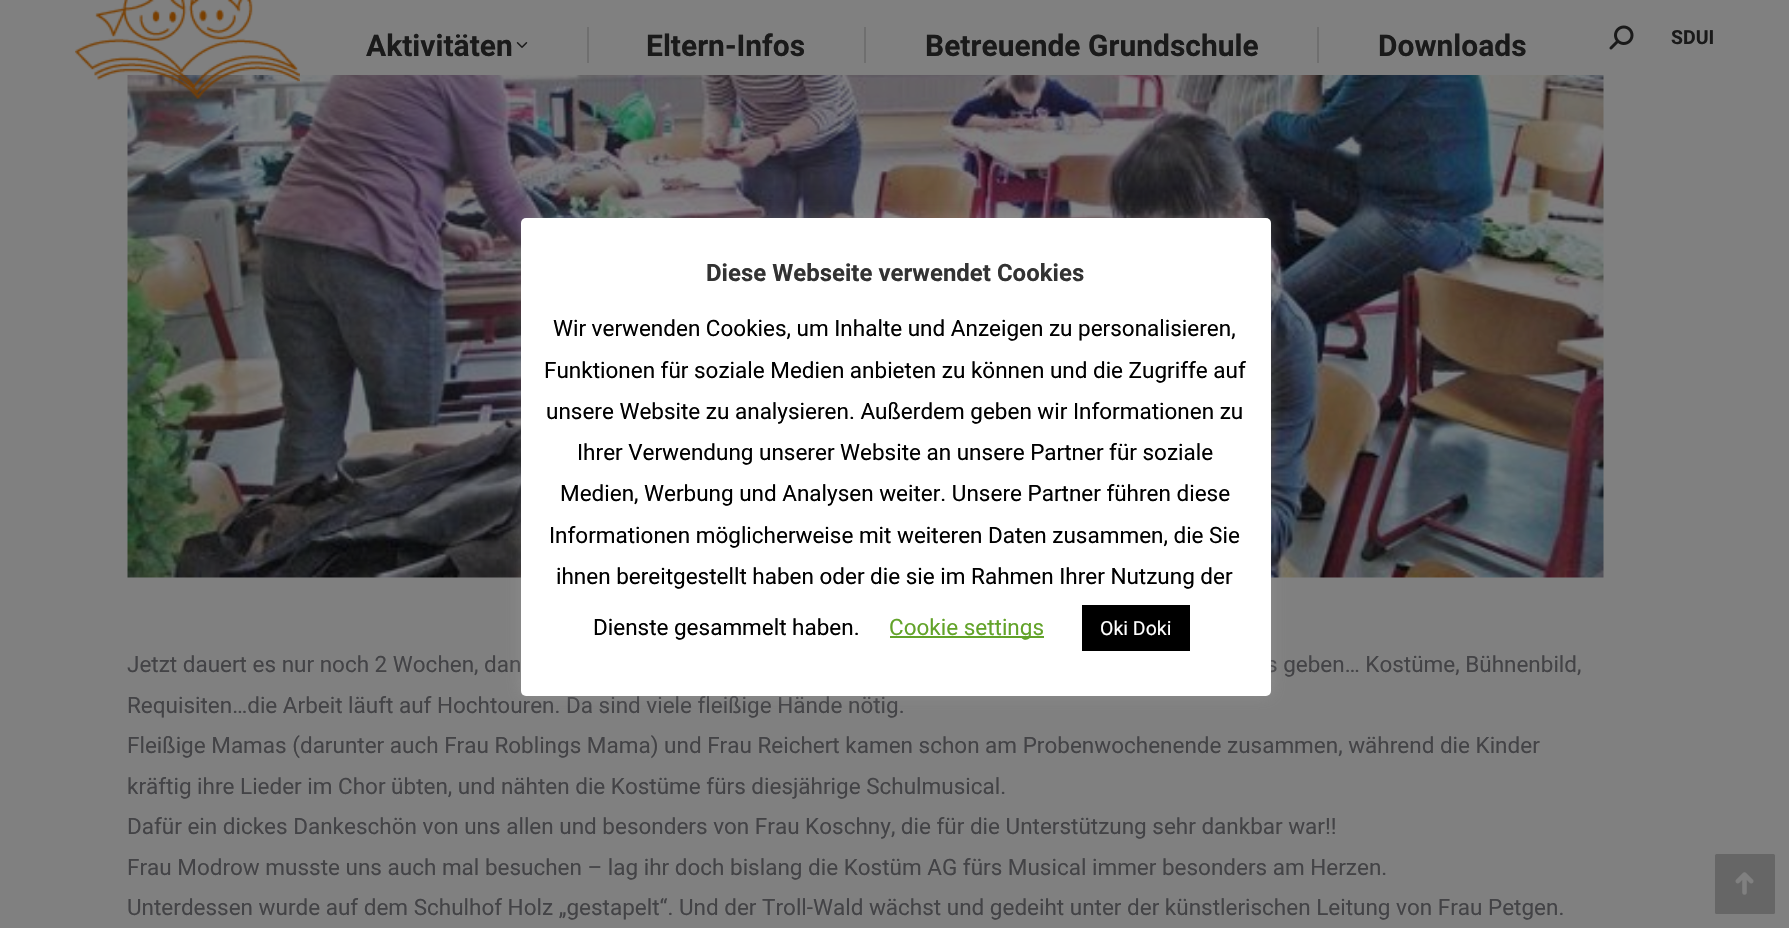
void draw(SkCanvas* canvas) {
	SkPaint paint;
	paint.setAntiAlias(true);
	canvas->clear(0xff808080);
	canvas->drawImageRect(SkImages::DeferredFromEncodedData(SkData::MakeFromFileName("img4.png")), SkRect::MakeXYWH(127, 75, 1477, 503), SkSamplingOptions());
	canvas->drawImageRect(SkImages::DeferredFromEncodedData(SkData::MakeFromFileName("img1.png")), SkRect::MakeXYWH(75, 0, 225, 99), SkSamplingOptions());
	SkFont f1(fontMgr->matchFamilyStyle("Roboto", SkFontStyle::Bold()), 30);
	f1.setSubpixel(true);
	paint.setColor(0xff1a1a1a);
	canvas->drawString("Aktivitäten", 366, 56, f1, paint);
	canvas->drawImageRect(SkImages::DeferredFromEncodedData(SkData::MakeFromFileName("img2.png")), SkRect::MakeXYWH(516, 42, 12, 6), SkSamplingOptions());
	paint.setColor(0xff6f6f6f);
	canvas->drawRect(SkRect::MakeXYWH(587, 27, 2, 36), paint);
	paint.setColor(0xff1a1a1a);
	canvas->drawString("Eltern-Infos", 646, 56, f1, paint);
	paint.setColor(0xff6f6f6f);
	canvas->drawRect(SkRect::MakeXYWH(864, 27, 2, 36), paint);
	paint.setColor(0xff1a1a1a);
	canvas->drawString("Betreuende Grundschule", 925, 56, f1, paint);
	paint.setColor(0xff6f6f6f);
	canvas->drawRect(SkRect::MakeXYWH(1317, 27, 2, 36), paint);
	paint.setColor(0xff1a1a1a);
	canvas->drawString("Downloads", 1378, 56, f1, paint);
	canvas->drawImageRect(SkImages::DeferredFromEncodedData(SkData::MakeFromFileName("img3.png")), SkRect::MakeXYWH(1609, 25, 25, 25), SkSamplingOptions());
	SkFont f2(fontMgr->matchFamilyStyle("Roboto", SkFontStyle::Bold()), 19.5);
	f2.setSubpixel(true);
	canvas->drawString("SDUI", 1671, 44, f2, paint);
	SkFont f3(fontMgr->matchFamilyStyle("Roboto", SkFontStyle::Normal()), 22.5);
	f3.setSubpixel(true);
	paint.setColor(0xff434346);
	canvas->drawString("Jetzt dauert es nur noch 2 Wochen, dan", 127, 672, f3, paint);
	canvas->drawString("s geben… Kostüme, Bühnenbild,", 1266, 672, f3, paint);
	canvas->drawString("Requisiten…die Arbeit läuft auf Hochtouren. Da sind viele fleißige Hände nötig.", 127, 713, f3, paint);
	canvas->drawString("Fleißige Mamas (darunter auch Frau Roblings Mama) und Frau Reichert kamen schon am Probenwochenende zusammen, während die Kinder", 127, 753, f3, paint);
	canvas->drawString("kräftig ihre Lieder im Chor übten, und nähten die Kostüme fürs diesjährige Schulmusical.", 127, 794, f3, paint);
	canvas->drawString("Dafür ein dickes Dankeschön von uns allen und besonders von Frau Koschny, die für die Unterstützung sehr dankbar war!!", 127, 834, f3, paint);
	canvas->drawString("Frau Modrow musste uns auch mal besuchen – lag ihr doch bislang die Kostüm AG fürs Musical immer besonders am Herzen.", 127, 875, f3, paint);
	canvas->drawString("Unterdessen wurde auf dem Schulhof Holz „gestapelt“. Und der Troll-Wald wächst und gedeiht unter der künstlerischen Leitung von Frau Petgen.", 127, 915, f3, paint);
	paint.setColor(0xff666666);
	canvas->drawRoundRect(SkRect::MakeXYWH(1715, 854, 60, 60), 1.5, 1.5, paint);
	canvas->drawImageRect(SkImages::DeferredFromEncodedData(SkData::MakeFromFileName("img5.png")), SkRect::MakeXYWH(1735, 872, 19, 23), SkSamplingOptions());
	paint.setColor(0x4dacabab);
	paint.setMaskFilter(SkMaskFilter::MakeBlur(kNormal_SkBlurStyle, 7.5));
	canvas->drawRoundRect(SkRect::MakeXYWH(521, 216, 750, 479), 5, 5, paint);
	paint.setMaskFilter(nullptr);
	paint.setColor(0xffffffff);
	canvas->drawRoundRect(SkRect::MakeXYWH(521, 218, 750, 478), 5, 5, paint);
	SkFont f4(fontMgr->matchFamilyStyle("Roboto", SkFontStyle::Bold()), 24);
	f4.setSubpixel(true);
	paint.setColor(0xff333333);
	canvas->drawString("Diese Webseite verwendet Cookies", 706, 281, f4, paint);
	paint.setColor(0xff000000);
	canvas->drawString("Wir verwenden Cookies, um Inhalte und Anzeigen zu personalisieren,", 553, 336, f3, paint);
	canvas->drawString("Funktionen für soziale Medien anbieten zu können und die Zugriffe auf", 544, 378, f3, paint);
	canvas->drawString("unsere Website zu analysieren. Außerdem geben wir Informationen zu", 546, 419, f3, paint);
	canvas->drawString("Ihrer Verwendung unserer Website an unsere Partner für soziale", 577, 460, f3, paint);
	canvas->drawString("Medien, Werbung und Analysen weiter. Unsere Partner führen diese", 560, 501, f3, paint);
	canvas->drawString("Informationen möglicherweise mit weiteren Daten zusammen, die Sie", 549, 543, f3, paint);
	canvas->drawString("ihnen bereitgestellt haben oder die sie im Rahmen Ihrer Nutzung der", 556, 584, f3, paint);
	canvas->drawString("Dienste gesammelt haben.", 593, 635, f3, paint);
	paint.setColor(0xff62a329);
	canvas->drawRect(SkRect::MakeXYWH(890, 636, 154, 2), paint);
	canvas->drawString("Cookie settings", 889, 635, f3, paint);
	paint.setColor(0xff000000);
	canvas->drawRect(SkRect::MakeXYWH(1082, 605, 108, 46), paint);
	SkFont f5(fontMgr->matchFamilyStyle("Roboto", SkFontStyle::Normal()), 19.5);
	f5.setSubpixel(true);
	paint.setColor(0xffffffff);
	canvas->drawString("Oki Doki", 1100, 635, f5, paint);
}
